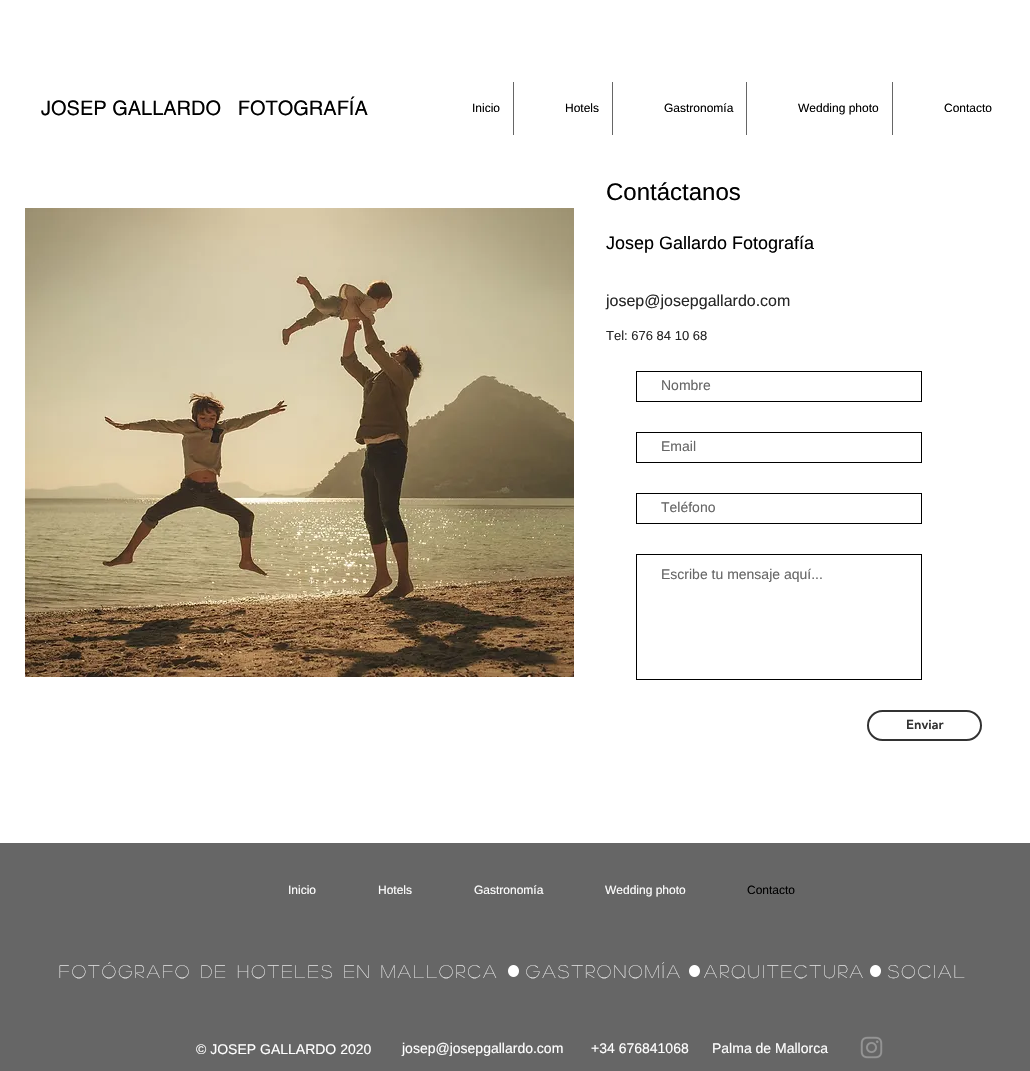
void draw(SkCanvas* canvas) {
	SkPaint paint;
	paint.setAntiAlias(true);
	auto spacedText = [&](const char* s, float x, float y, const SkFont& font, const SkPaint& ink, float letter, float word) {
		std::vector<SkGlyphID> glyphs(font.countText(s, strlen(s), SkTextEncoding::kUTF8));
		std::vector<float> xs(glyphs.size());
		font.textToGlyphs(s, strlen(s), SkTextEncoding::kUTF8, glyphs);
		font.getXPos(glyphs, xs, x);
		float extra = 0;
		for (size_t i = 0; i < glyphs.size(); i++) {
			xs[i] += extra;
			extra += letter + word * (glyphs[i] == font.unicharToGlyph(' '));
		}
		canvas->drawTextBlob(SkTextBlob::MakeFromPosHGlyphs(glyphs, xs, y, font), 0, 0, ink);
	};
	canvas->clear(0xffffffff);
	SkFont f1(fontMgr->matchFamilyStyle("helvetica", SkFontStyle::Normal()), 20);
	f1.setSubpixel(true);
	paint.setColor(0xff000000);
	canvas->drawString("JOSEP GALLARDO   FOTOGRAFÍA", 41, 115, f1, paint);
	SkFont f2(fontMgr->matchFamilyStyle("Liberation Sans", SkFontStyle::Normal()), 12);
	f2.setSubpixel(true);
	canvas->drawString("Inicio", 472, 112, f2, paint);
	paint.setColor(0xff666666);
	canvas->drawRect(SkRect::MakeXYWH(513, 82, 1, 53), paint);
	paint.setColor(0xff000000);
	canvas->drawString("Hotels", 565, 112, f2, paint);
	paint.setColor(0xff666666);
	canvas->drawRect(SkRect::MakeXYWH(612, 82, 1, 53), paint);
	paint.setColor(0xff000000);
	canvas->drawString("Gastronomía", 664, 112, f2, paint);
	paint.setColor(0xff666666);
	canvas->drawRect(SkRect::MakeXYWH(746, 82, 1, 53), paint);
	paint.setColor(0xff000000);
	canvas->drawString("Wedding photo", 798, 112, f2, paint);
	paint.setColor(0xff666666);
	canvas->drawRect(SkRect::MakeXYWH(892, 82, 1, 53), paint);
	paint.setColor(0xff000000);
	canvas->drawString("Contacto", 944, 112, f2, paint);
	canvas->drawImageRect(SkImages::DeferredFromEncodedData(SkData::MakeFromFileName("img1.png")), SkRect::MakeXYWH(25, 208, 549, 469), SkSamplingOptions());
	SkFont f3(fontMgr->matchFamilyStyle("Liberation Sans", SkFontStyle::Normal()), 24);
	f3.setSubpixel(true);
	canvas->drawString("Contáctanos", 606, 200, f3, paint);
	SkFont f4(fontMgr->matchFamilyStyle("Liberation Sans", SkFontStyle::Normal()), 18);
	f4.setSubpixel(true);
	canvas->drawString("Josep Gallardo Fotografía", 606, 249, f4, paint);
	SkFont f5(fontMgr->matchFamilyStyle("Liberation Sans", SkFontStyle::Normal()), 16);
	f5.setSubpixel(true);
	paint.setColor(0xff272727);
	canvas->drawString("josep@josepgallardo.com", 606, 306, f5, paint);
	SkFont f6(fontMgr->matchFamilyStyle("Liberation Sans", SkFontStyle::Normal()), 13);
	f6.setSubpixel(true);
	canvas->drawString("Tel: 676 84 10 68", 606, 340, f6, paint);
	paint.setStroke(true);
	paint.setStrokeWidth(1);
	paint.setColor(0xff000000);
	canvas->drawRect(SkRect::MakeXYWH(636.5, 371.5, 285, 30), paint);
	SkFont f7(fontMgr->matchFamilyStyle("Liberation Sans", SkFontStyle::Normal()), 14);
	f7.setSubpixel(true);
	paint.setStroke(false);
	paint.setColor(0xff666666);
	canvas->drawString("Nombre", 661, 390, f7, paint);
	paint.setStroke(true);
	paint.setColor(0xff000000);
	canvas->drawRect(SkRect::MakeXYWH(636.5, 432.5, 285, 30), paint);
	paint.setStroke(false);
	paint.setColor(0xff666666);
	canvas->drawString("Email", 661, 451, f7, paint);
	paint.setStroke(true);
	paint.setColor(0xff000000);
	canvas->drawRect(SkRect::MakeXYWH(636.5, 493.5, 285, 30), paint);
	paint.setStroke(false);
	paint.setColor(0xff666666);
	canvas->drawString("Teléfono", 661, 512, f7, paint);
	paint.setStroke(true);
	paint.setColor(0xff000000);
	canvas->drawRect(SkRect::MakeXYWH(636.5, 554.5, 285, 125), paint);
	paint.setStroke(false);
	paint.setColor(0xff666666);
	canvas->drawString("Escribe tu mensaje aquí...", 661, 579, f7, paint);
	paint.setStroke(true);
	paint.setStrokeWidth(2);
	paint.setColor(0xff323232);
	canvas->drawRoundRect(SkRect::MakeXYWH(868, 711, 113, 29), 14.5, 14.5, paint);
	SkFont f8(fontMgr->matchFamilyStyle("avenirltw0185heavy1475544", SkFontStyle(900, SkFontStyle::kNormal_Width, SkFontStyle::kUpright_Slant)), 13);
	f8.setSubpixel(true);
	paint.setStroke(false);
	canvas->drawString("Enviar", 906, 729, f8, paint);
	paint.setColor(0xff666666);
	canvas->drawRect(SkRect::MakeXYWH(0, 843, 1030, 228), paint);
	paint.setColor(0xffffffff);
	canvas->drawString("Inicio", 288, 894, f2, paint);
	canvas->drawString("Hotels", 378, 894, f2, paint);
	canvas->drawString("Gastronomía", 474, 894, f2, paint);
	canvas->drawString("Wedding photo", 605, 894, f2, paint);
	paint.setColor(0xff000000);
	canvas->drawString("Contacto", 747, 894, f2, paint);
	SkFont f9(fontMgr->matchFamilyStyle("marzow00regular", SkFontStyle::Normal()), 18);
	f9.setSubpixel(true);
	paint.setColor(0xffffffff);
	spacedText("FOTóGRAFo de hoteles en mallorca", 59, 978, f9, paint, 2.7, 0);
	canvas->drawImageRect(SkImages::DeferredFromEncodedData(SkData::MakeFromFileName("img2.png")), SkRect::MakeXYWH(508, 965, 11, 12), SkSamplingOptions());
	spacedText("GASTRONOMÍA", 526, 978, f9, paint, 2.7, 0);
	canvas->drawImageRect(SkImages::DeferredFromEncodedData(SkData::MakeFromFileName("img2.png")), SkRect::MakeXYWH(689, 965, 11, 12), SkSamplingOptions());
	spacedText("ARQUITECTURA", 704, 978, f9, paint, 2.7, 0);
	canvas->drawImageRect(SkImages::DeferredFromEncodedData(SkData::MakeFromFileName("img2.png")), SkRect::MakeXYWH(870, 965, 11, 12), SkSamplingOptions());
	spacedText("SOCIAL", 888, 978, f9, paint, 2.7, 0);
	canvas->drawString("© JOSEP GALLARDO 2020", 196, 1054, f7, paint);
	canvas->drawString("josep@josepgallardo.com", 402, 1053, f7, paint);
	canvas->drawString("+34 676841068", 591, 1053, f7, paint);
	canvas->drawString("Palma de Mallorca", 712, 1053, f7, paint);
	canvas->drawImageRect(SkImages::DeferredFromEncodedData(SkData::MakeFromFileName("img3.png")), SkRect::MakeXYWH(860, 1036, 23, 23), SkSamplingOptions());
}
